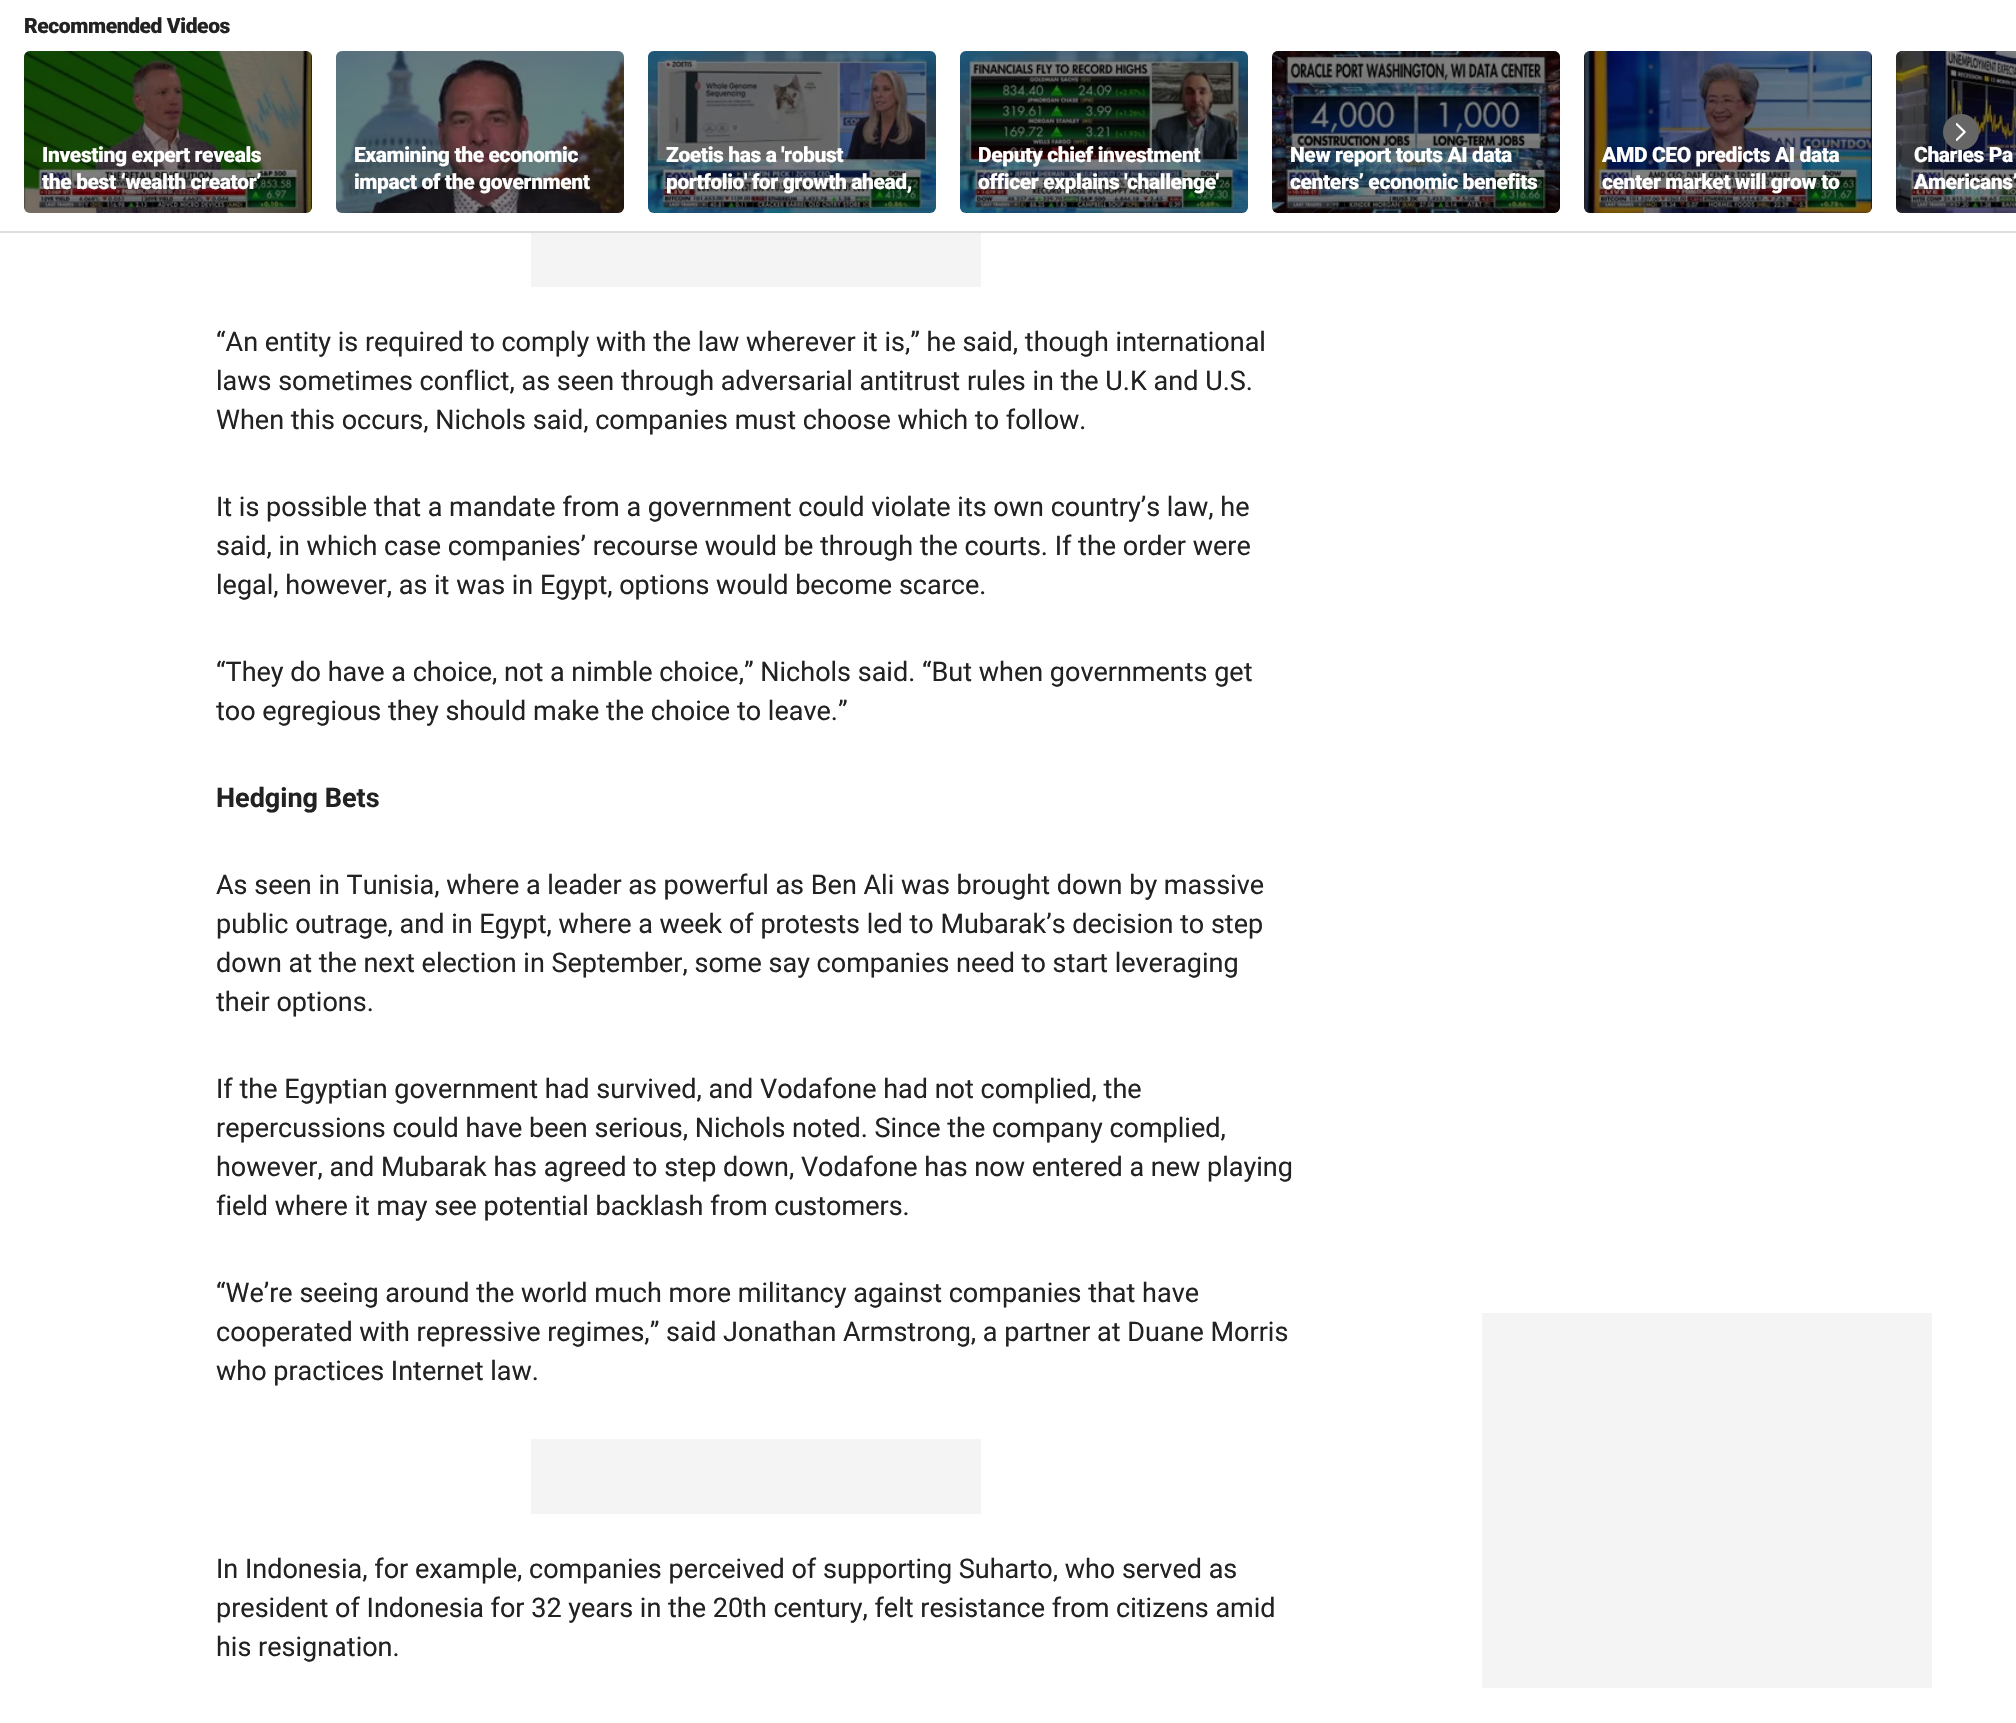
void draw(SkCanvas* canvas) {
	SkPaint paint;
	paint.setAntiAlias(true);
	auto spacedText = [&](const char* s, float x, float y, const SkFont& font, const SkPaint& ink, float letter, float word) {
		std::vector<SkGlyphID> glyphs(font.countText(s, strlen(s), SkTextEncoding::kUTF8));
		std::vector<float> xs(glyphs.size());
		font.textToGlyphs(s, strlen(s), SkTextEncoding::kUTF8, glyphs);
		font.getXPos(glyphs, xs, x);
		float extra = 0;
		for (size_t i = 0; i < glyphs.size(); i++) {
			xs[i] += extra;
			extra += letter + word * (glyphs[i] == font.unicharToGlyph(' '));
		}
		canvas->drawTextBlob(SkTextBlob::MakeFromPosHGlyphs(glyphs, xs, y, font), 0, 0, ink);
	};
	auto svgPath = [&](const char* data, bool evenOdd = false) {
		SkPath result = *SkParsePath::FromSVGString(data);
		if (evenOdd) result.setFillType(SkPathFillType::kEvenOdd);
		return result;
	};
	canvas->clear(0xffffffff);
	paint.setColor(0xffdddddd);
	canvas->drawRect(SkRect::MakeXYWH(0, 231, 2016, 2), paint);
	SkFont f1(fontMgr->matchFamilyStyle("Roboto", SkFontStyle(900, SkFontStyle::kNormal_Width, SkFontStyle::kUpright_Slant)), 21);
	f1.setSubpixel(true);
	paint.setColor(0xff222222);
	spacedText("Recommended Videos", 24, 33, f1, paint, -0.4, 0);
	canvas->drawImageRect(SkImages::DeferredFromEncodedData(SkData::MakeFromFileName("img8.png")), SkRect::MakeXYWH(1896, 51, 120, 162), SkSamplingOptions());
	paint.setColor(0x80000000);
	canvas->drawPath(svgPath("M1902 51H2016V213H1902C1898.5 213 1896 210.5 1896 207V57C1896 53.5 1898.5 51 1902 51Z"), paint);
	paint.setColor(0xffffffff);
	spacedText("Charles Pa", 1914, 162, f1, paint, -0.4, 0);
	paint.setColor(0xff666666);
	canvas->drawCircle(1961, 132, 18, paint);
	canvas->drawImageRect(SkImages::DeferredFromEncodedData(SkData::MakeFromFileName("img1.png")), SkRect::MakeXYWH(1956, 123, 10, 18), SkSamplingOptions());
	canvas->drawImageRect(SkImages::DeferredFromEncodedData(SkData::MakeFromFileName("img2.png")), SkRect::MakeXYWH(24, 51, 288, 162), SkSamplingOptions());
	paint.setColor(0x80000000);
	canvas->drawRoundRect(SkRect::MakeXYWH(24, 51, 288, 162), 6, 6, paint);
	paint.setColor(0xffffffff);
	spacedText("Investing expert reveals", 42, 162, f1, paint, -0.4, 0);
	spacedText("the best ‘wealth creator’", 42, 189, f1, paint, -0.4, 0);
	canvas->drawImageRect(SkImages::DeferredFromEncodedData(SkData::MakeFromFileName("img3.png")), SkRect::MakeXYWH(336, 51, 288, 162), SkSamplingOptions());
	paint.setColor(0x80000000);
	canvas->drawRoundRect(SkRect::MakeXYWH(336, 51, 288, 162), 6, 6, paint);
	paint.setColor(0xffffffff);
	spacedText("Examining the economic", 354, 162, f1, paint, -0.4, 0);
	spacedText("impact of the government", 354, 189, f1, paint, -0.4, 0);
	canvas->drawImageRect(SkImages::DeferredFromEncodedData(SkData::MakeFromFileName("img4.png")), SkRect::MakeXYWH(648, 51, 288, 162), SkSamplingOptions());
	paint.setColor(0x80000000);
	canvas->drawRoundRect(SkRect::MakeXYWH(648, 51, 288, 162), 6, 6, paint);
	paint.setColor(0xffffffff);
	spacedText("Zoetis has a 'robust", 666, 162, f1, paint, -0.4, 0);
	spacedText("portfolio' for growth ahead,", 666, 189, f1, paint, -0.4, 0);
	canvas->drawImageRect(SkImages::DeferredFromEncodedData(SkData::MakeFromFileName("img5.png")), SkRect::MakeXYWH(960, 51, 288, 162), SkSamplingOptions());
	paint.setColor(0x80000000);
	canvas->drawRoundRect(SkRect::MakeXYWH(960, 51, 288, 162), 6, 6, paint);
	paint.setColor(0xffffffff);
	spacedText("Deputy chief investment", 978, 162, f1, paint, -0.4, 0);
	spacedText("officer explains 'challenge'", 978, 189, f1, paint, -0.4, 0);
	canvas->drawImageRect(SkImages::DeferredFromEncodedData(SkData::MakeFromFileName("img6.png")), SkRect::MakeXYWH(1272, 51, 288, 162), SkSamplingOptions());
	paint.setColor(0x80000000);
	canvas->drawRoundRect(SkRect::MakeXYWH(1272, 51, 288, 162), 6, 6, paint);
	paint.setColor(0xffffffff);
	spacedText("New report touts AI data", 1290, 162, f1, paint, -0.4, 0);
	spacedText("centers’ economic benefits", 1290, 189, f1, paint, -0.4, 0);
	canvas->drawImageRect(SkImages::DeferredFromEncodedData(SkData::MakeFromFileName("img7.png")), SkRect::MakeXYWH(1584, 51, 288, 162), SkSamplingOptions());
	paint.setColor(0x80000000);
	canvas->drawRoundRect(SkRect::MakeXYWH(1584, 51, 288, 162), 6, 6, paint);
	paint.setColor(0xffffffff);
	spacedText("AMD CEO predicts AI data", 1602, 162, f1, paint, -0.4, 0);
	spacedText("center market will grow to", 1602, 189, f1, paint, -0.4, 0);
	spacedText("Americans’", 1914, 189, f1, paint, -0.4, 0);
	paint.setColor(0xfff4f4f4);
	canvas->drawRect(SkRect::MakeXYWH(531, 233, 450, 54), paint);
	SkFont f2(fontMgr->matchFamilyStyle("Roboto", SkFontStyle::Normal()), 27);
	f2.setSubpixel(true);
	paint.setColor(0xff222222);
	canvas->drawString("“An entity is required to comply with the law wherever it is,” he said, though international", 216, 351, f2, paint);
	canvas->drawString("laws sometimes conflict, as seen through adversarial antitrust rules in the U.K and U.S.", 216, 390, f2, paint);
	canvas->drawString("When this occurs, Nichols said, companies must choose which to follow.", 216, 429, f2, paint);
	canvas->drawString("It is possible that a mandate from a government could violate its own country’s law, he", 216, 516, f2, paint);
	canvas->drawString("said, in which case companies’ recourse would be through the courts. If the order were", 216, 555, f2, paint);
	canvas->drawString("legal, however, as it was in Egypt, options would become scarce.", 216, 594, f2, paint);
	canvas->drawString("“They do have a choice, not a nimble choice,” Nichols said. “But when governments get", 216, 681, f2, paint);
	canvas->drawString("too egregious they should make the choice to leave.”", 216, 720, f2, paint);
	SkFont f3(fontMgr->matchFamilyStyle("Roboto", SkFontStyle::Bold()), 27);
	f3.setSubpixel(true);
	canvas->drawString("Hedging Bets", 216, 807, f3, paint);
	canvas->drawString("As seen in Tunisia, where a leader as powerful as Ben Ali was brought down by massive", 216, 894, f2, paint);
	canvas->drawString("public outrage, and in Egypt, where a week of protests led to Mubarak’s decision to step", 216, 933, f2, paint);
	canvas->drawString("down at the next election in September, some say companies need to start leveraging", 216, 972, f2, paint);
	canvas->drawString("their options.", 216, 1011, f2, paint);
	canvas->drawString("If the Egyptian government had survived, and Vodafone had not complied, the", 216, 1098, f2, paint);
	canvas->drawString("repercussions could have been serious, Nichols noted. Since the company complied,", 216, 1137, f2, paint);
	canvas->drawString("however, and Mubarak has agreed to step down, Vodafone has now entered a new playing", 216, 1176, f2, paint);
	canvas->drawString("field where it may see potential backlash from customers.", 216, 1215, f2, paint);
	canvas->drawString("“We’re seeing around the world much more militancy against companies that have", 216, 1302, f2, paint);
	canvas->drawString("cooperated with repressive regimes,” said Jonathan Armstrong, a partner at Duane Morris", 216, 1341, f2, paint);
	canvas->drawString("who practices Internet law.", 216, 1380, f2, paint);
	paint.setColor(0xfff4f4f4);
	canvas->drawRect(SkRect::MakeXYWH(531, 1439, 450, 75), paint);
	paint.setColor(0xff222222);
	canvas->drawString("In Indonesia, for example, companies perceived of supporting Suharto, who served as", 216, 1578, f2, paint);
	canvas->drawString("president of Indonesia for 32 years in the 20th century, felt resistance from citizens amid", 216, 1617, f2, paint);
	canvas->drawString("his resignation.", 216, 1656, f2, paint);
	paint.setColor(0xfff4f4f4);
	canvas->drawRect(SkRect::MakeXYWH(1482, 1313, 450, 375), paint);
}
